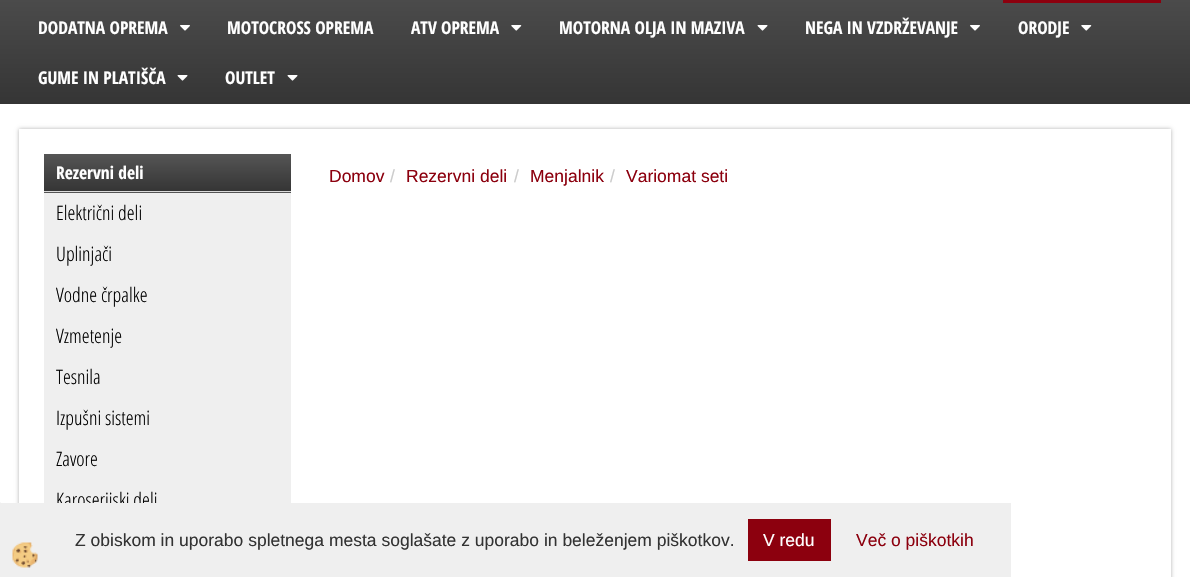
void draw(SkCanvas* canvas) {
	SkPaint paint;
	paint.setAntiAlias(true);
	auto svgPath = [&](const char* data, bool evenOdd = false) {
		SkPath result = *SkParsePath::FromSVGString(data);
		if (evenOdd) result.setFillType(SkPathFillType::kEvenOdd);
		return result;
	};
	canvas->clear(0xffffffff);
	{
		const SkColor colors[] = {0xff555555, 0xff353535};
		const float stops[] = {0, 1};
		const SkPoint ends[] = {{595, -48}, {595, 104}};
		paint.setShader(SkGradientShader::MakeLinear(ends, colors, stops, 2, SkTileMode::kClamp));
		paint.setAlpha(255);
	}
	canvas->drawRect(SkRect::MakeXYWH(0, 0, 1190, 104), paint);
	paint.setShader(nullptr);
	paint.setColor(0xff8c000e);
	canvas->drawRect(SkRect::MakeXYWH(1003, 0, 158, 3), paint);
	SkFont f1(fontMgr->matchFamilyStyle("Open Sans Condensed", SkFontStyle::Bold()), 17.5);
	f1.setSubpixel(true);
	paint.setColor(0xffffffff);
	canvas->drawString("DODATNA OPREMA", 38, 34, f1, paint);
	canvas->drawImageRect(SkImages::DeferredFromEncodedData(SkData::MakeFromFileName("img1.png")), SkRect::MakeXYWH(180, 25, 10, 6), SkSamplingOptions());
	canvas->drawString("MOTOCROSS OPREMA", 227, 34, f1, paint);
	canvas->drawString("ATV OPREMA", 411, 34, f1, paint);
	canvas->drawImageRect(SkImages::DeferredFromEncodedData(SkData::MakeFromFileName("img2.png")), SkRect::MakeXYWH(511, 25, 11, 6), SkSamplingOptions());
	canvas->drawString("MOTORNA OLJA IN MAZIVA", 559, 34, f1, paint);
	canvas->drawImageRect(SkImages::DeferredFromEncodedData(SkData::MakeFromFileName("img3.png")), SkRect::MakeXYWH(757, 25, 11, 6), SkSamplingOptions());
	canvas->drawString("NEGA IN VZDRŽEVANJE", 805, 34, f1, paint);
	canvas->drawImageRect(SkImages::DeferredFromEncodedData(SkData::MakeFromFileName("img1.png")), SkRect::MakeXYWH(970, 25, 10, 6), SkSamplingOptions());
	canvas->drawString("ORODJE", 1018, 34, f1, paint);
	canvas->drawImageRect(SkImages::DeferredFromEncodedData(SkData::MakeFromFileName("img2.png")), SkRect::MakeXYWH(1081, 25, 11, 6), SkSamplingOptions());
	canvas->drawString("GUME IN PLATIŠČA", 38, 84, f1, paint);
	canvas->drawImageRect(SkImages::DeferredFromEncodedData(SkData::MakeFromFileName("img4.png")), SkRect::MakeXYWH(177, 75, 11, 6), SkSamplingOptions());
	canvas->drawString("OUTLET", 225, 84, f1, paint);
	canvas->drawImageRect(SkImages::DeferredFromEncodedData(SkData::MakeFromFileName("img4.png")), SkRect::MakeXYWH(287, 75, 11, 6), SkSamplingOptions());
	canvas->save();
	canvas->clipPath(svgPath("M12 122H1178V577H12ZM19 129H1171V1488H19Z", true), true);
	paint.setColor(0x4d000000);
	paint.setMaskFilter(SkMaskFilter::MakeBlur(kNormal_SkBlurStyle, 2));
	canvas->drawRect(SkRect::MakeXYWH(19, 129, 1152, 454), paint);
	paint.setMaskFilter(nullptr);
	canvas->restore();
	{
		const SkColor colors[] = {0xff555555, 0xff353535};
		const float stops[] = {0, 1};
		const SkPoint ends[] = {{168, 154}, {168, 191}};
		paint.setShader(SkGradientShader::MakeLinear(ends, colors, stops, 2, SkTileMode::kClamp));
		paint.setAlpha(255);
	}
	canvas->drawRect(SkRect::MakeXYWH(44, 154, 247, 37), paint);
	{
		const SkColor colors[] = {0xff555555, 0xff353535};
		const float stops[] = {0, 1};
		const SkPoint ends[] = {{168, 191}, {168, 229}};
		paint.setShader(SkGradientShader::MakeLinear(ends, colors, stops, 2, SkTileMode::kClamp));
		paint.setAlpha(255);
	}
	canvas->drawRect(SkRect::MakeXYWH(44, 192, 247, 1), paint);
	paint.setShader(nullptr);
	paint.setColor(0xffdbdbdb);
	canvas->drawRect(SkRect::MakeXYWH(44, 191, 247, 1), paint);
	paint.setColor(0xffffffff);
	canvas->drawString("Rezervni deli", 56, 179, f1, paint);
	paint.setColor(0xffefefef);
	canvas->drawRect(SkRect::MakeXYWH(44, 193, 247, 310), paint);
	SkFont f2(fontMgr->matchFamilyStyle("Open Sans Condensed", SkFontStyle(300, SkFontStyle::kNormal_Width, SkFontStyle::kUpright_Slant)), 20);
	f2.setSubpixel(true);
	paint.setColor(0xff000000);
	canvas->drawString("Električni deli", 56, 220, f2, paint);
	canvas->drawString("Uplinjači", 56, 261, f2, paint);
	canvas->drawString("Vodne črpalke", 56, 302, f2, paint);
	canvas->drawString("Vzmetenje", 56, 343, f2, paint);
	canvas->drawString("Tesnila", 56, 384, f2, paint);
	canvas->drawString("Izpušni sistemi", 56, 425, f2, paint);
	canvas->drawString("Zavore", 56, 466, f2, paint);
	canvas->drawString("Karoserijski deli", 56, 507, f2, paint);
	SkFont f3(fontMgr->matchFamilyStyle("Liberation Sans", SkFontStyle::Normal()), 17.5);
	f3.setSubpixel(true);
	paint.setColor(0xff8c000e);
	canvas->drawString("Domov", 329, 182, f3, paint);
	paint.setColor(0xffcccccc);
	canvas->drawString("/", 390, 182, f3, paint);
	paint.setColor(0xff8c000e);
	canvas->drawString("Rezervni deli", 406, 182, f3, paint);
	paint.setColor(0xffcccccc);
	canvas->drawString("/", 514, 182, f3, paint);
	paint.setColor(0xff8c000e);
	canvas->drawString("Menjalnik", 530, 182, f3, paint);
	paint.setColor(0xffcccccc);
	canvas->drawString("/", 610, 182, f3, paint);
	paint.setColor(0xff8c000e);
	canvas->drawString("Variomat seti", 626, 182, f3, paint);
	paint.setColor(0xffefefef);
	canvas->drawRect(SkRect::MakeXYWH(1, 503, 1010, 74), paint);
	canvas->drawPath(svgPath("M75 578H0V502Z"), paint);
	canvas->drawImageRect(SkImages::DeferredFromEncodedData(SkData::MakeFromFileName("img5.png")), SkRect::MakeXYWH(12, 542, 26, 26), SkSamplingOptions());
	paint.setColor(0xff333333);
	canvas->drawString("Z obiskom in uporabo spletnega mesta soglašate z uporabo in beleženjem piškotkov.", 75, 546, f3, paint);
	paint.setColor(0xff8c000e);
	canvas->drawRect(SkRect::MakeXYWH(748, 519, 83, 42), paint);
	paint.setColor(0xffffffff);
	canvas->drawString("V redu", 763, 546, f3, paint);
	paint.setColor(0xff8c000e);
	canvas->drawString("Več o piškotkih", 856, 546, f3, paint);
}
